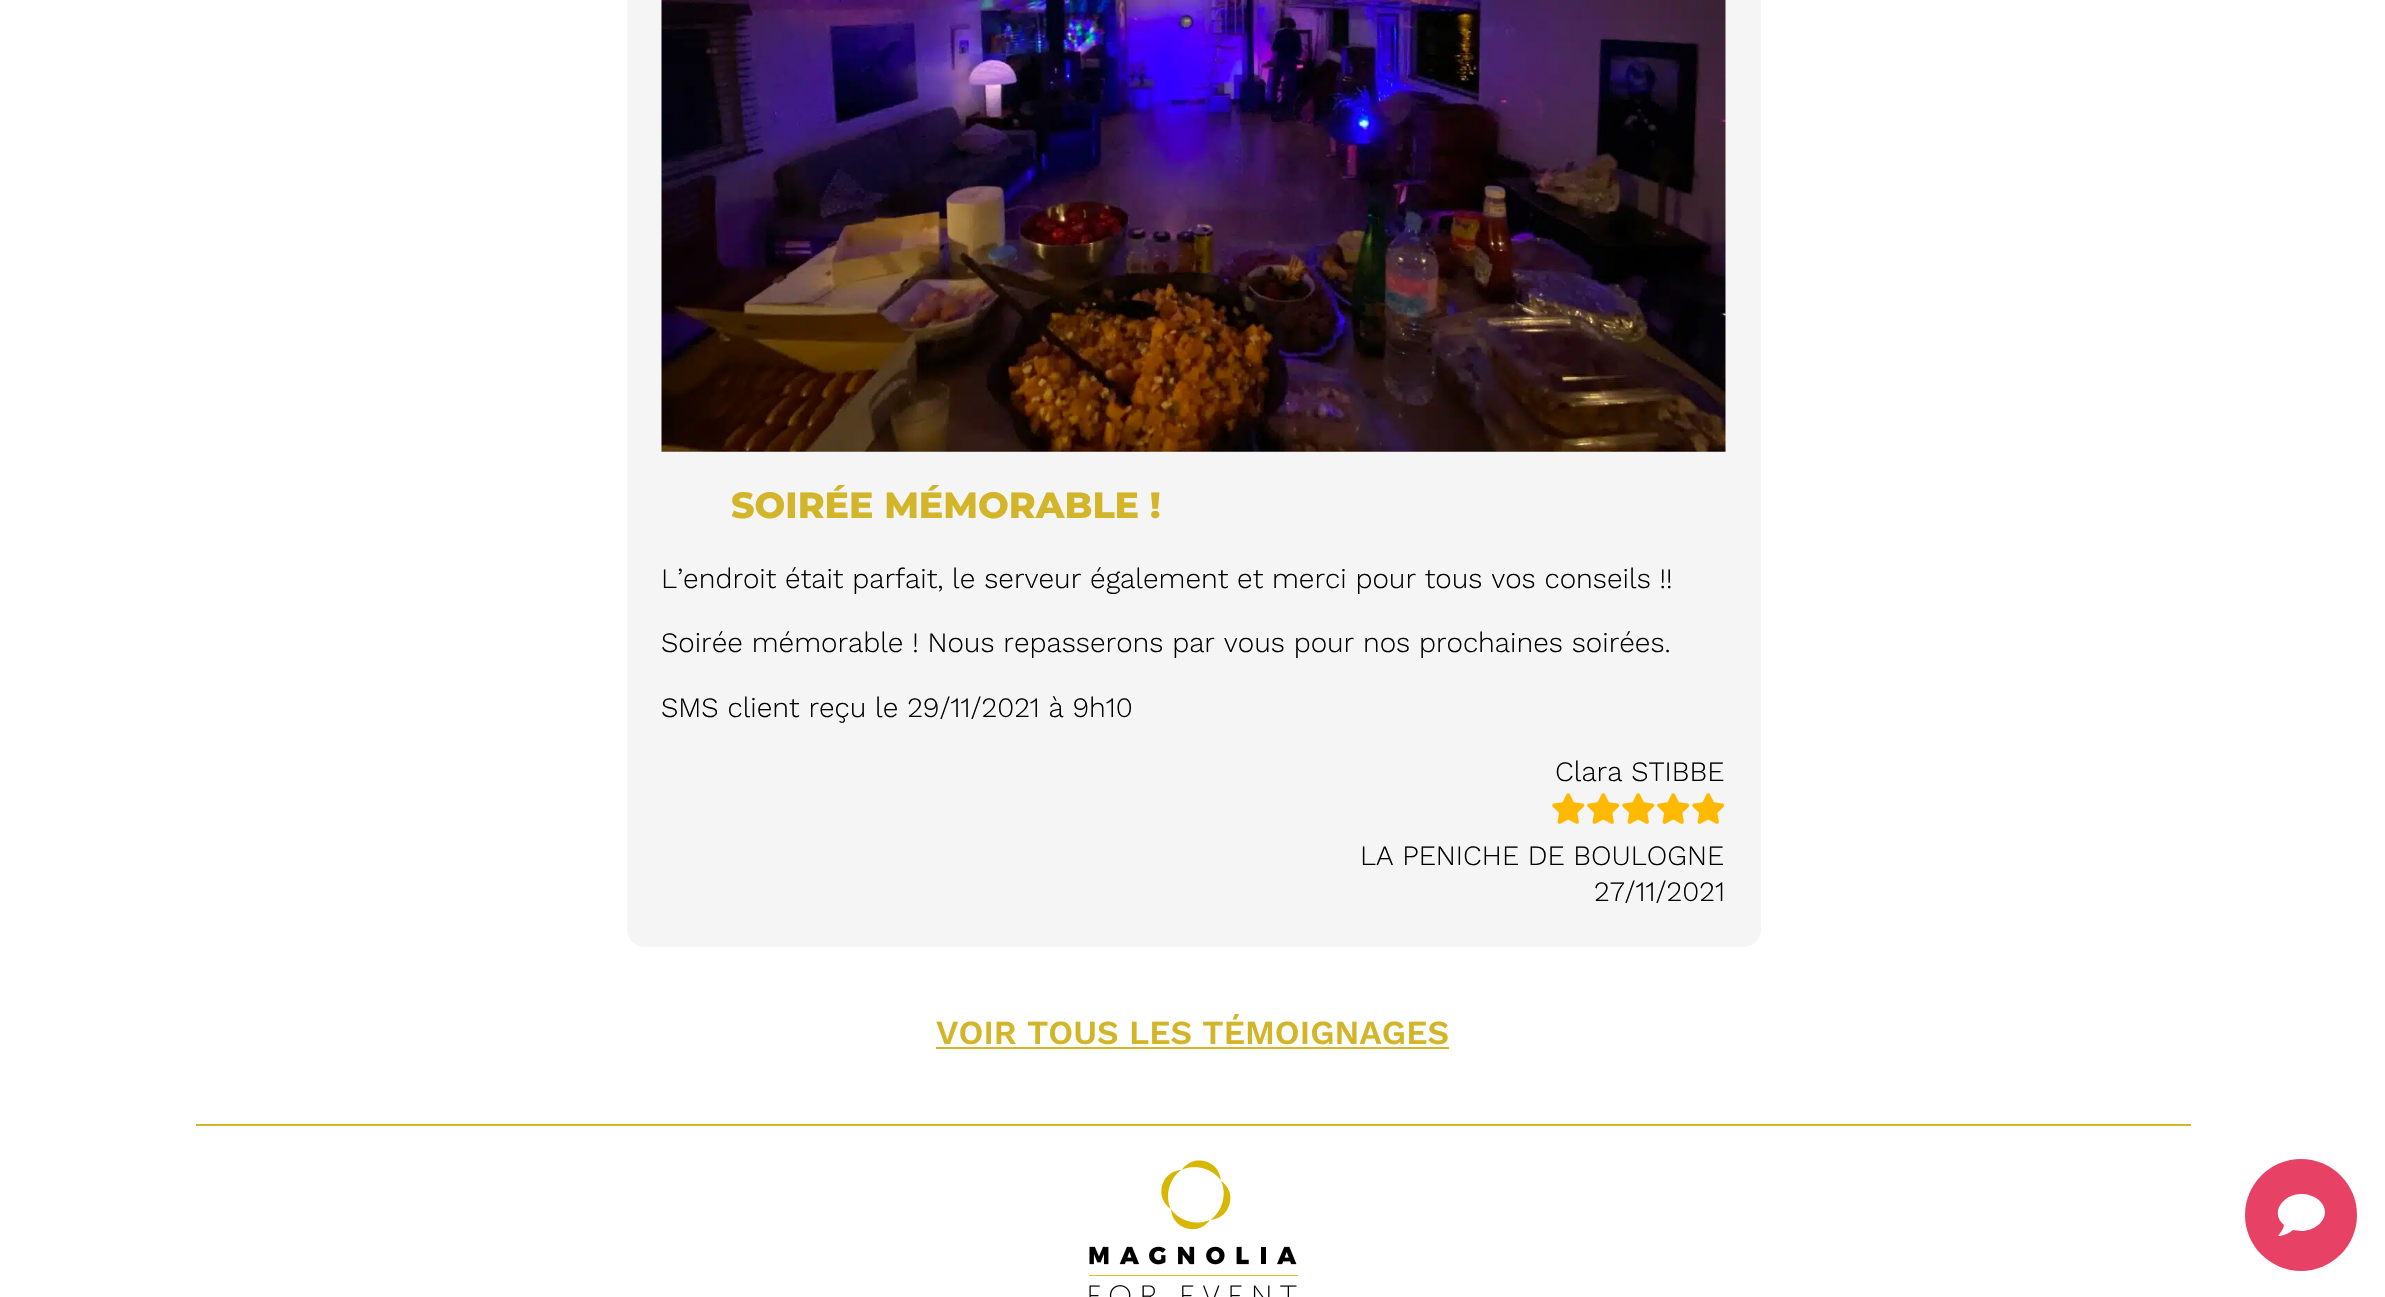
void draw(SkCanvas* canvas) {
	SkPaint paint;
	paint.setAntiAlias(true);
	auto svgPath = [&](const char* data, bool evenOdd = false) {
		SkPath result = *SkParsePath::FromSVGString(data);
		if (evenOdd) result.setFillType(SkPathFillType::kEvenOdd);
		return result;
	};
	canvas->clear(0xffffffff);
	paint.setColor(0xfff5f5f5);
	canvas->drawRoundRect(SkRect::MakeXYWH(627, -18, 1134, 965), 18, 18, paint);
	canvas->drawImageRect(SkImages::DeferredFromEncodedData(SkData::MakeFromFileName("img1.png")), SkRect::MakeXYWH(661, 0, 1065, 452), SkSamplingOptions());
	SkFont f1(fontMgr->matchFamilyStyle("Montserrat", SkFontStyle(800, SkFontStyle::kNormal_Width, SkFontStyle::kUpright_Slant)), 36.4);
	f1.setSubpixel(true);
	paint.setColor(0xffd3b52a);
	canvas->drawString("SOIRÉE MÉMORABLE !", 731, 518, f1, paint);
	SkFont f2(fontMgr->matchFamilyStyle("Work Sans", SkFontStyle(300, SkFontStyle::kNormal_Width, SkFontStyle::kUpright_Slant)), 28);
	f2.setSubpixel(true);
	paint.setColor(0xff000000);
	canvas->drawString("L’endroit était parfait, le serveur également et merci pour tous vos conseils !!", 661, 588, f2, paint);
	canvas->drawString("Soirée mémorable ! Nous repasserons par vous pour nos prochaines soirées.", 661, 652, f2, paint);
	canvas->drawString("SMS client reçu le 29/11/2021 à 9h10", 661, 717, f2, paint);
	canvas->drawString("Clara STIBBE", 1555, 781, f2, paint);
	canvas->drawImageRect(SkImages::DeferredFromEncodedData(SkData::MakeFromFileName("img2.png")), SkRect::MakeXYWH(1552, 793, 33, 31), SkSamplingOptions());
	canvas->drawImageRect(SkImages::DeferredFromEncodedData(SkData::MakeFromFileName("img2.png")), SkRect::MakeXYWH(1587, 793, 33, 31), SkSamplingOptions());
	canvas->drawImageRect(SkImages::DeferredFromEncodedData(SkData::MakeFromFileName("img2.png")), SkRect::MakeXYWH(1622, 793, 33, 31), SkSamplingOptions());
	canvas->drawImageRect(SkImages::DeferredFromEncodedData(SkData::MakeFromFileName("img2.png")), SkRect::MakeXYWH(1657, 793, 33, 31), SkSamplingOptions());
	canvas->drawImageRect(SkImages::DeferredFromEncodedData(SkData::MakeFromFileName("img2.png")), SkRect::MakeXYWH(1692, 793, 33, 31), SkSamplingOptions());
	canvas->drawString("LA PENICHE DE BOULOGNE", 1360, 865, f2, paint);
	canvas->drawString("27/11/2021", 1594, 901, f2, paint);
	SkFont f3(fontMgr->matchFamilyStyle("Work Sans", SkFontStyle(600, SkFontStyle::kNormal_Width, SkFontStyle::kUpright_Slant)), 33.6);
	f3.setSubpixel(true);
	paint.setColor(0xffd3b52a);
	canvas->drawString("VOIR TOUS LES TÉMOIGNAGES", 936, 1044, f3, paint);
	canvas->drawRect(SkRect::MakeXYWH(936, 1047, 513, 2), paint);
	canvas->drawRect(SkRect::MakeXYWH(196, 1124, 1995, 2), paint);
	canvas->drawImageRect(SkImages::DeferredFromEncodedData(SkData::MakeFromFileName("img3.png")), SkRect::MakeXYWH(1089, 1160, 209, 137), SkSamplingOptions());
	paint.setColor(0xffe74266);
	canvas->drawCircle(2301, 1215, 56, paint);
	paint.setColor(0xffffffff);
	canvas->drawPath(svgPath("M2301 1194C2314 1194 2325 1202 2325 1212C2325 1222 2314 1231 2301 1231C2298 1231 2296 1230 2293 1230C2286 1236 2278 1236 2278 1236C2283 1230 2284 1226 2284 1225C2269 1212 2284 1194 2301 1194"), paint);
}
